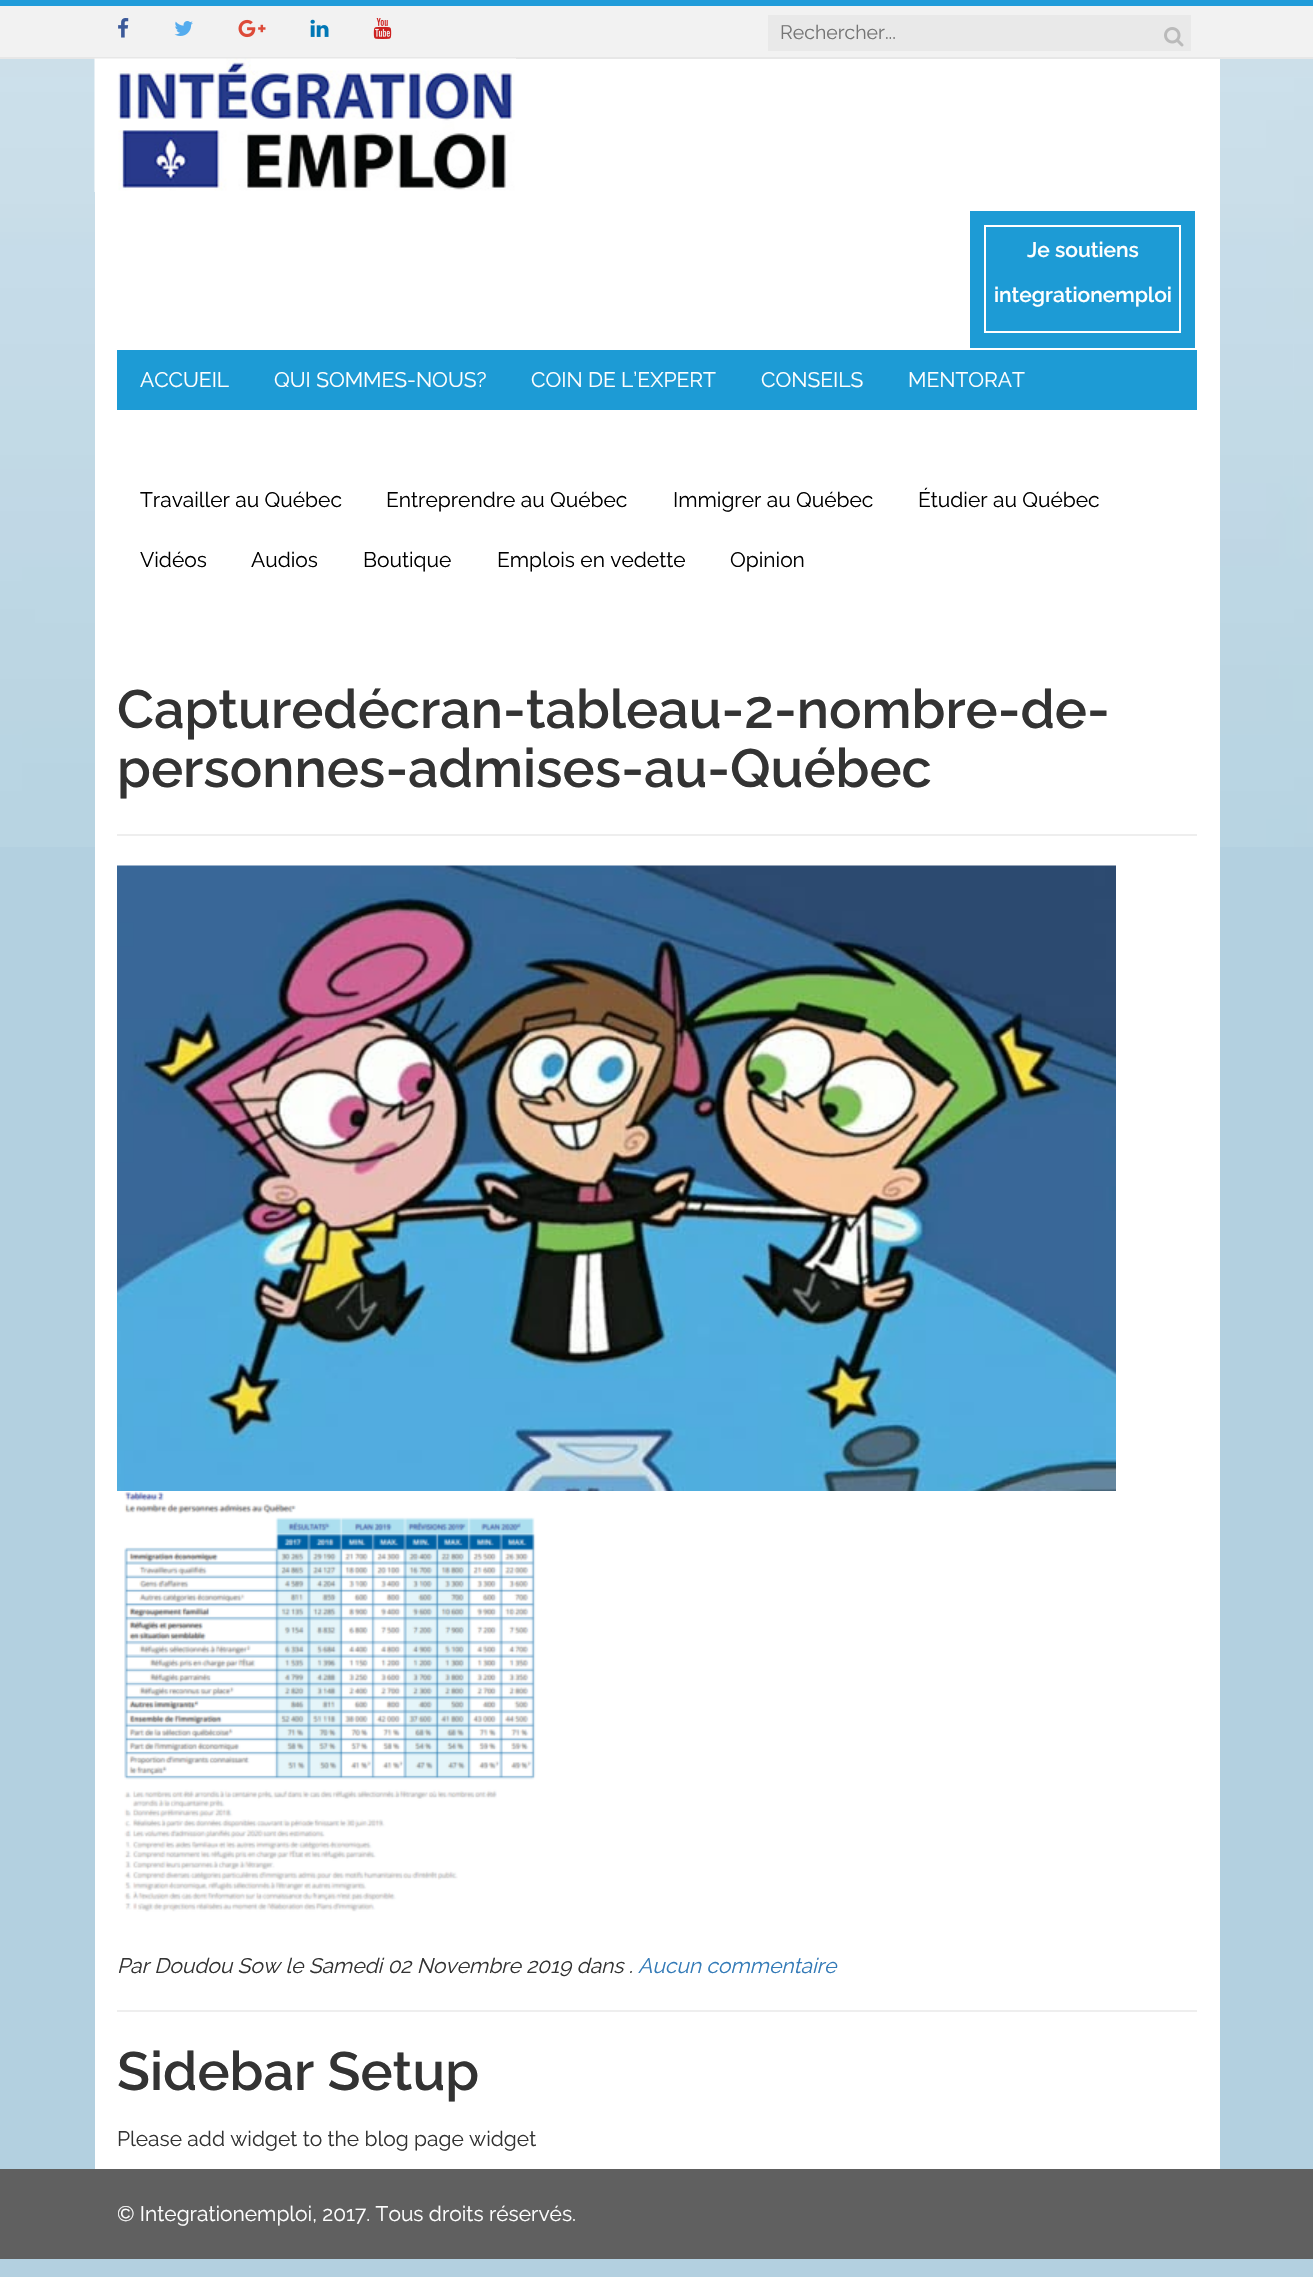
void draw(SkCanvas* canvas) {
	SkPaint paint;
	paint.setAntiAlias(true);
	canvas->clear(0xffb3d0e0);
	canvas->drawImageRect(SkImages::DeferredFromEncodedData(SkData::MakeFromFileName("img1.png")), SkRect::MakeXYWH(0, 59, 1313, 788), SkSamplingOptions());
	paint.setColor(0xfff2f2f2);
	canvas->drawRect(SkRect::MakeXYWH(0, 6, 1313, 51), paint);
	paint.setColor(0xff209cda);
	canvas->drawRect(SkRect::MakeXYWH(0, 0, 1313, 6), paint);
	paint.setColor(0xffe7e7e7);
	canvas->drawRect(SkRect::MakeXYWH(0, 57, 1313, 2), paint);
	canvas->drawImageRect(SkImages::DeferredFromEncodedData(SkData::MakeFromFileName("img2.png")), SkRect::MakeXYWH(118, 18, 11, 20), SkSamplingOptions());
	canvas->drawImageRect(SkImages::DeferredFromEncodedData(SkData::MakeFromFileName("img3.png")), SkRect::MakeXYWH(174, 21, 19, 15), SkSamplingOptions());
	canvas->drawImageRect(SkImages::DeferredFromEncodedData(SkData::MakeFromFileName("img4.png")), SkRect::MakeXYWH(238, 19, 28, 19), SkSamplingOptions());
	canvas->drawImageRect(SkImages::DeferredFromEncodedData(SkData::MakeFromFileName("img5.png")), SkRect::MakeXYWH(310, 19, 19, 18), SkSamplingOptions());
	canvas->drawImageRect(SkImages::DeferredFromEncodedData(SkData::MakeFromFileName("img6.png")), SkRect::MakeXYWH(373, 18, 19, 21), SkSamplingOptions());
	paint.setColor(0xffe9e9e9);
	canvas->drawRect(SkRect::MakeXYWH(768, 15, 423, 36), paint);
	SkFont f1(fontMgr->matchFamilyStyle("Raleway", SkFontStyle::Normal()), 19.5);
	f1.setSubpixel(true);
	paint.setColor(0xff757575);
	canvas->drawString("Rechercher...", 780, 39, f1, paint);
	canvas->drawImageRect(SkImages::DeferredFromEncodedData(SkData::MakeFromFileName("img7.png")), SkRect::MakeXYWH(1164, 27, 20, 20), SkSamplingOptions());
	paint.setColor(0xffffffff);
	canvas->drawRect(SkRect::MakeXYWH(95, 59, 1125, 2110), paint);
	canvas->drawImageRect(SkImages::DeferredFromEncodedData(SkData::MakeFromFileName("img8.png")), SkRect::MakeXYWH(94, 58, 422, 134), SkSamplingOptions());
	paint.setColor(0xff1d9bd5);
	canvas->drawRect(SkRect::MakeXYWH(970, 211, 225, 137), paint);
	paint.setStroke(true);
	paint.setStrokeWidth(2);
	paint.setColor(0xffffffff);
	canvas->drawRect(SkRect::MakeXYWH(985, 226, 195, 106), paint);
	SkFont f2(fontMgr->matchFamilyStyle("Raleway", SkFontStyle(600, SkFontStyle::kNormal_Width, SkFontStyle::kUpright_Slant)), 21);
	f2.setSubpixel(true);
	paint.setStroke(false);
	canvas->drawString("Je soutiens", 1027, 257, f2, paint);
	canvas->drawString("integrationemploi", 994, 302, f2, paint);
	paint.setColor(0xff1d9bd5);
	canvas->drawRect(SkRect::MakeXYWH(117, 350, 1080, 60), paint);
	SkFont f3(fontMgr->matchFamilyStyle("Raleway", SkFontStyle::Normal()), 21);
	f3.setSubpixel(true);
	paint.setColor(0xffffffff);
	canvas->drawString("ACCUEIL", 140, 387, f3, paint);
	canvas->drawString("QUI SOMMES-NOUS?", 274, 387, f3, paint);
	canvas->drawString("COIN DE L’EXPERT", 531, 387, f3, paint);
	canvas->drawString("CONSEILS", 761, 387, f3, paint);
	canvas->drawString("MENTORAT", 908, 387, f3, paint);
	paint.setColor(0xff000000);
	canvas->drawString("Travailler au Québec", 140, 507, f3, paint);
	canvas->drawString("Entreprendre au Québec", 386, 507, f3, paint);
	canvas->drawString("Immigrer au Québec", 673, 507, f3, paint);
	canvas->drawString("Étudier au Québec", 918, 507, f3, paint);
	canvas->drawString("Vidéos", 140, 567, f3, paint);
	canvas->drawString("Audios", 251, 567, f3, paint);
	canvas->drawString("Boutique", 363, 567, f3, paint);
	canvas->drawString("Emplois en vedette", 497, 567, f3, paint);
	canvas->drawString("Opinion", 730, 567, f3, paint);
	paint.setColor(0xffeeeeee);
	canvas->drawRect(SkRect::MakeXYWH(117, 834, 1080, 2), paint);
	SkFont f4(fontMgr->matchFamilyStyle("Raleway", SkFontStyle(600, SkFontStyle::kNormal_Width, SkFontStyle::kUpright_Slant)), 54);
	f4.setSubpixel(true);
	paint.setColor(0xff333333);
	canvas->drawString("Capturedécran-tableau-2-nombre-de-", 117, 728, f4, paint);
	canvas->drawString("personnes-admises-au-Québec", 117, 787, f4, paint);
	canvas->drawImageRect(SkImages::DeferredFromEncodedData(SkData::MakeFromFileName("img9.png")), SkRect::MakeXYWH(117, 865, 999, 626), SkSamplingOptions());
	canvas->drawImageRect(SkImages::DeferredFromEncodedData(SkData::MakeFromFileName("img10.png")), SkRect::MakeXYWH(124, 1491, 412, 421), SkSamplingOptions());
	SkFont f5(fontMgr->matchFamilyStyle("Raleway", SkFontStyle::Italic()), 21);
	f5.setSubpixel(true);
	canvas->drawString("Par Doudou Sow le Samedi 02 Novembre 2019 dans .", 117, 1973, f5, paint);
	paint.setColor(0xff337ab7);
	canvas->drawString("Aucun commentaire", 638, 1973, f5, paint);
	paint.setColor(0xffeeeeee);
	canvas->drawRect(SkRect::MakeXYWH(117, 2010, 1080, 2), paint);
	paint.setColor(0xff333333);
	canvas->drawString("Sidebar Setup", 117, 2090, f4, paint);
	canvas->drawString("Please add widget to the blog page widget", 117, 2146, f3, paint);
	paint.setColor(0xff606060);
	canvas->drawRect(SkRect::MakeXYWH(0, 2169, 1313, 90), paint);
	paint.setColor(0xffffffff);
	canvas->drawString("© Integrationemploi, 2017. Tous droits réservés.", 117, 2221, f3, paint);
}
